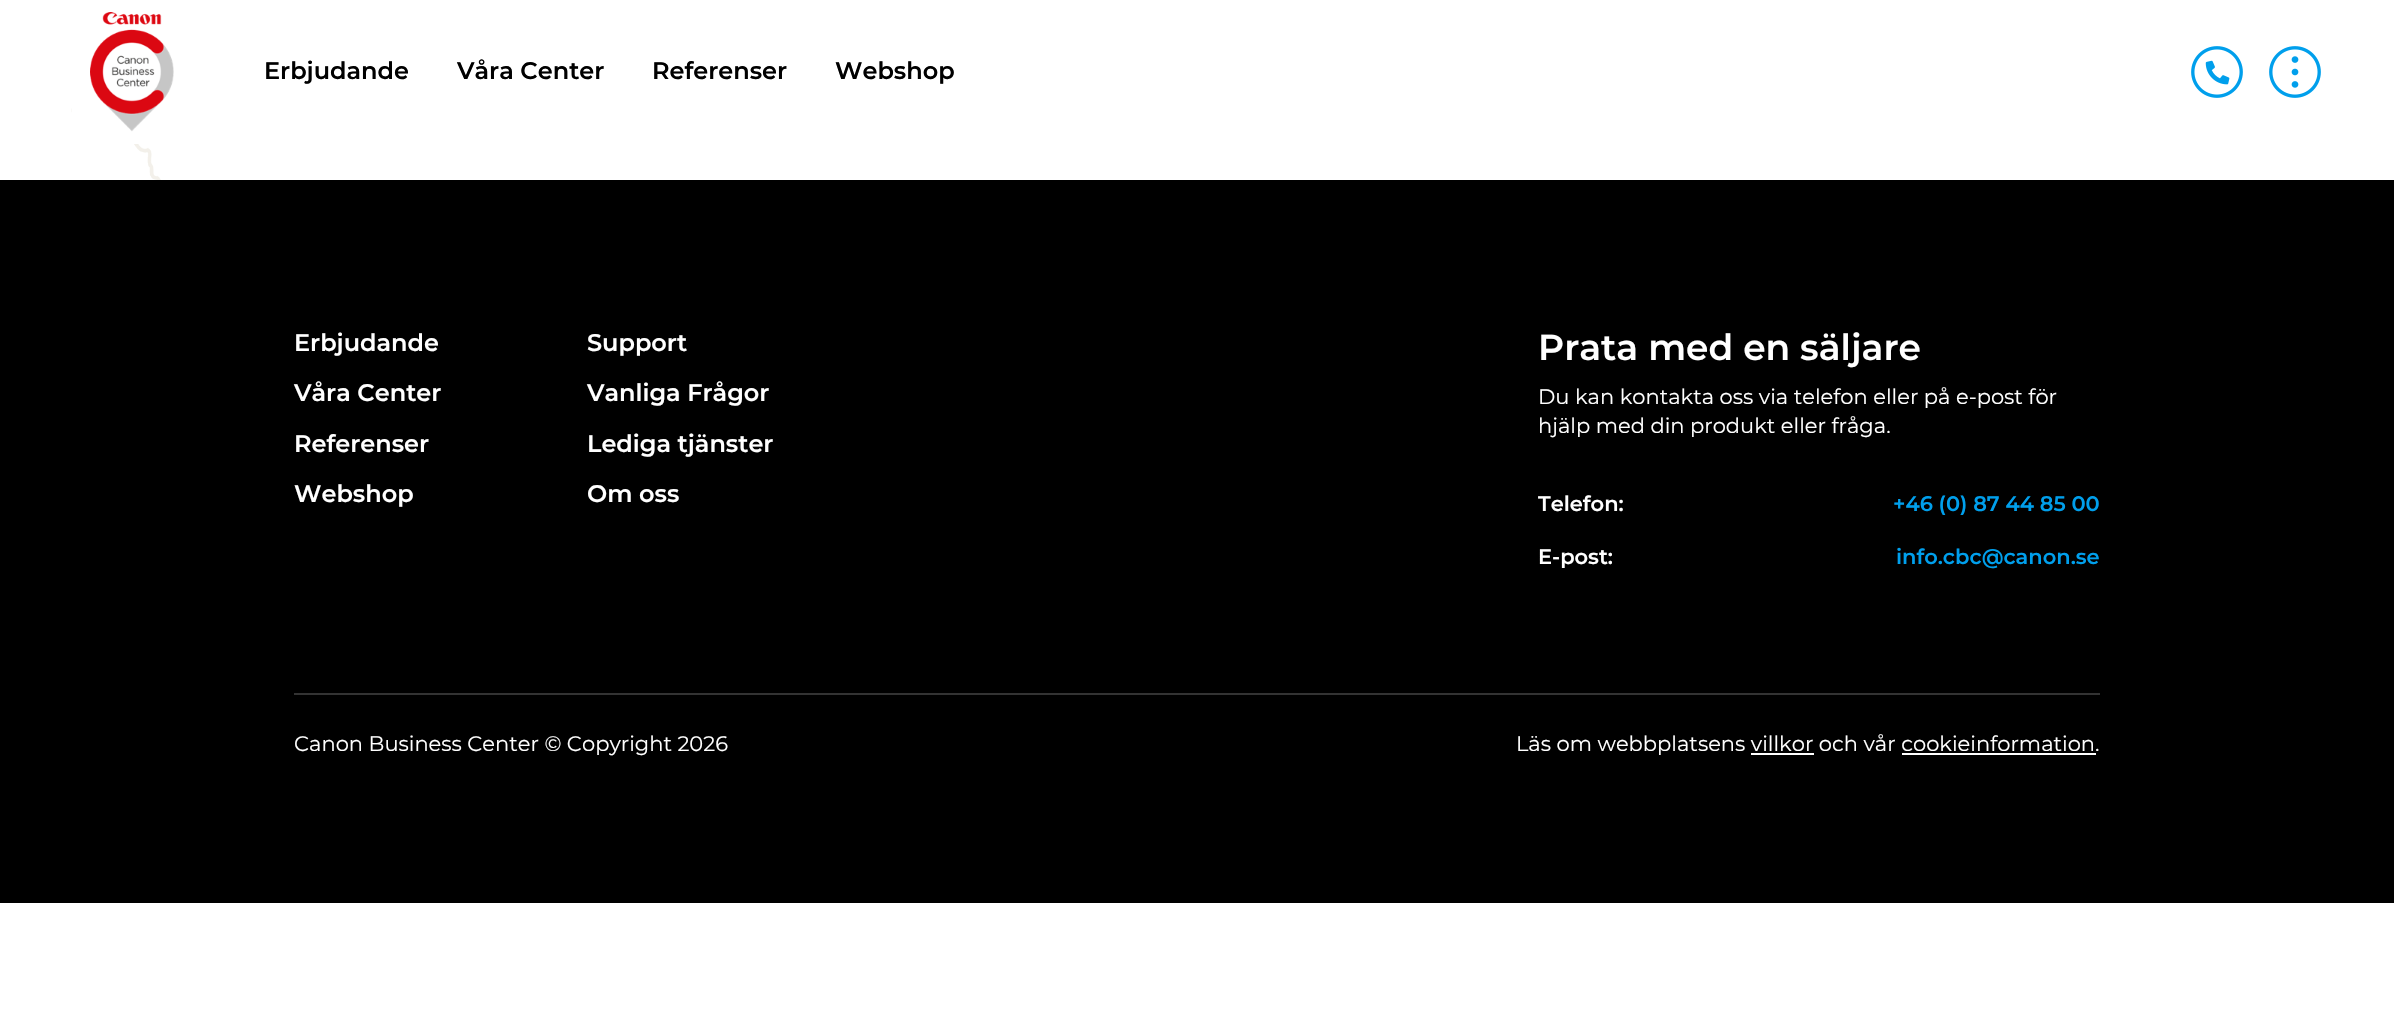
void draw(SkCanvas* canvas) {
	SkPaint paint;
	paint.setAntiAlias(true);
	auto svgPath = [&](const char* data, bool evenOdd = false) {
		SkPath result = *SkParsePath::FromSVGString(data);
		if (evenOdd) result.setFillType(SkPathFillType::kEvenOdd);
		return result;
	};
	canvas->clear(0xffffffff);
	canvas->drawImageRect(SkImages::DeferredFromEncodedData(SkData::MakeFromFileName("img4.png")), SkRect::MakeXYWH(71, 108, 90, 72), SkSamplingOptions());
	{
		const SkColor colors[] = {0xffffffff, 0x00ffffff};
		const float stops[] = {0.4, 0.95};
		const SkPoint ends[] = {{1197, 0}, {1197, 144}};
		paint.setShader(SkGradientShader::MakeLinear(ends, colors, stops, 2, SkTileMode::kClamp));
		paint.setAlpha(255);
	}
	canvas->drawRect(SkRect::MakeXYWH(72, 108, 30, 19), paint);
	paint.setShader(nullptr);
	paint.setColor(0xffffffff);
	canvas->drawPath(svgPath("M72 0H192V138C192 141.5 189.5 144 186 144H78C74.5 144 72 141.5 72 138Z"), paint);
	canvas->drawImageRect(SkImages::DeferredFromEncodedData(SkData::MakeFromFileName("img1.png")), SkRect::MakeXYWH(90, 12, 84, 120), SkSamplingOptions());
	SkFont f1(fontMgr->matchFamilyStyle("Montserrat", SkFontStyle(600, SkFontStyle::kNormal_Width, SkFontStyle::kUpright_Slant)), 24);
	f1.setSubpixel(true);
	paint.setColor(0xff000000);
	canvas->drawString("Erbjudande", 264, 79, f1, paint);
	canvas->drawString("Våra Center", 457, 79, f1, paint);
	canvas->drawString("Referenser", 652, 79, f1, paint);
	canvas->drawString("Webshop", 835, 79, f1, paint);
	canvas->drawImageRect(SkImages::DeferredFromEncodedData(SkData::MakeFromFileName("img2.png")), SkRect::MakeXYWH(2191, 46, 52, 52), SkSamplingOptions());
	canvas->drawImageRect(SkImages::DeferredFromEncodedData(SkData::MakeFromFileName("img3.png")), SkRect::MakeXYWH(2269, 46, 52, 52), SkSamplingOptions());
	canvas->drawRect(SkRect::MakeXYWH(0, 180, 2394, 723), paint);
	paint.setColor(0xffffffff);
	canvas->drawString("Erbjudande", 294, 351, f1, paint);
	canvas->drawString("Support", 587, 351, f1, paint);
	canvas->drawString("Våra Center", 294, 401, f1, paint);
	canvas->drawString("Vanliga Frågor", 587, 401, f1, paint);
	canvas->drawString("Referenser", 294, 452, f1, paint);
	canvas->drawString("Lediga tjänster", 587, 452, f1, paint);
	canvas->drawString("Webshop", 294, 502, f1, paint);
	canvas->drawString("Om oss", 587, 502, f1, paint);
	SkFont f2(fontMgr->matchFamilyStyle("Montserrat", SkFontStyle(600, SkFontStyle::kNormal_Width, SkFontStyle::kUpright_Slant)), 36);
	f2.setSubpixel(true);
	canvas->drawString("Prata med en säljare", 1538, 360, f2, paint);
	SkFont f3(fontMgr->matchFamilyStyle("Montserrat", SkFontStyle::Normal()), 21);
	f3.setSubpixel(true);
	canvas->drawString("Du kan kontakta oss via telefon eller på e-post för", 1538, 404, f3, paint);
	canvas->drawString("hjälp med din produkt eller fråga.", 1538, 433, f3, paint);
	SkFont f4(fontMgr->matchFamilyStyle("Montserrat", SkFontStyle(600, SkFontStyle::kNormal_Width, SkFontStyle::kUpright_Slant)), 21);
	f4.setSubpixel(true);
	canvas->drawString("Telefon:", 1538, 511, f4, paint);
	paint.setColor(0xff009fec);
	canvas->drawString("+46 (0) 87 44 85 00", 1893, 511, f4, paint);
	paint.setColor(0xffffffff);
	canvas->drawString("E-post:", 1538, 564, f4, paint);
	paint.setColor(0xff009fec);
	canvas->drawString("info.cbc@canon.se", 1896, 564, f4, paint);
	paint.setColor(0xff333333);
	canvas->drawRect(SkRect::MakeXYWH(294, 693, 1806, 2), paint);
	paint.setColor(0xffffffff);
	canvas->drawString("Canon Business Center © Copyright 2026", 294, 751, f3, paint);
	canvas->drawString("Läs om webbplatsens villkor och vår cookieinformation.", 1516, 751, f3, paint);
	canvas->drawRect(SkRect::MakeXYWH(1751, 753, 63, 2), paint);
	canvas->drawRect(SkRect::MakeXYWH(1902, 753, 194, 2), paint);
}
